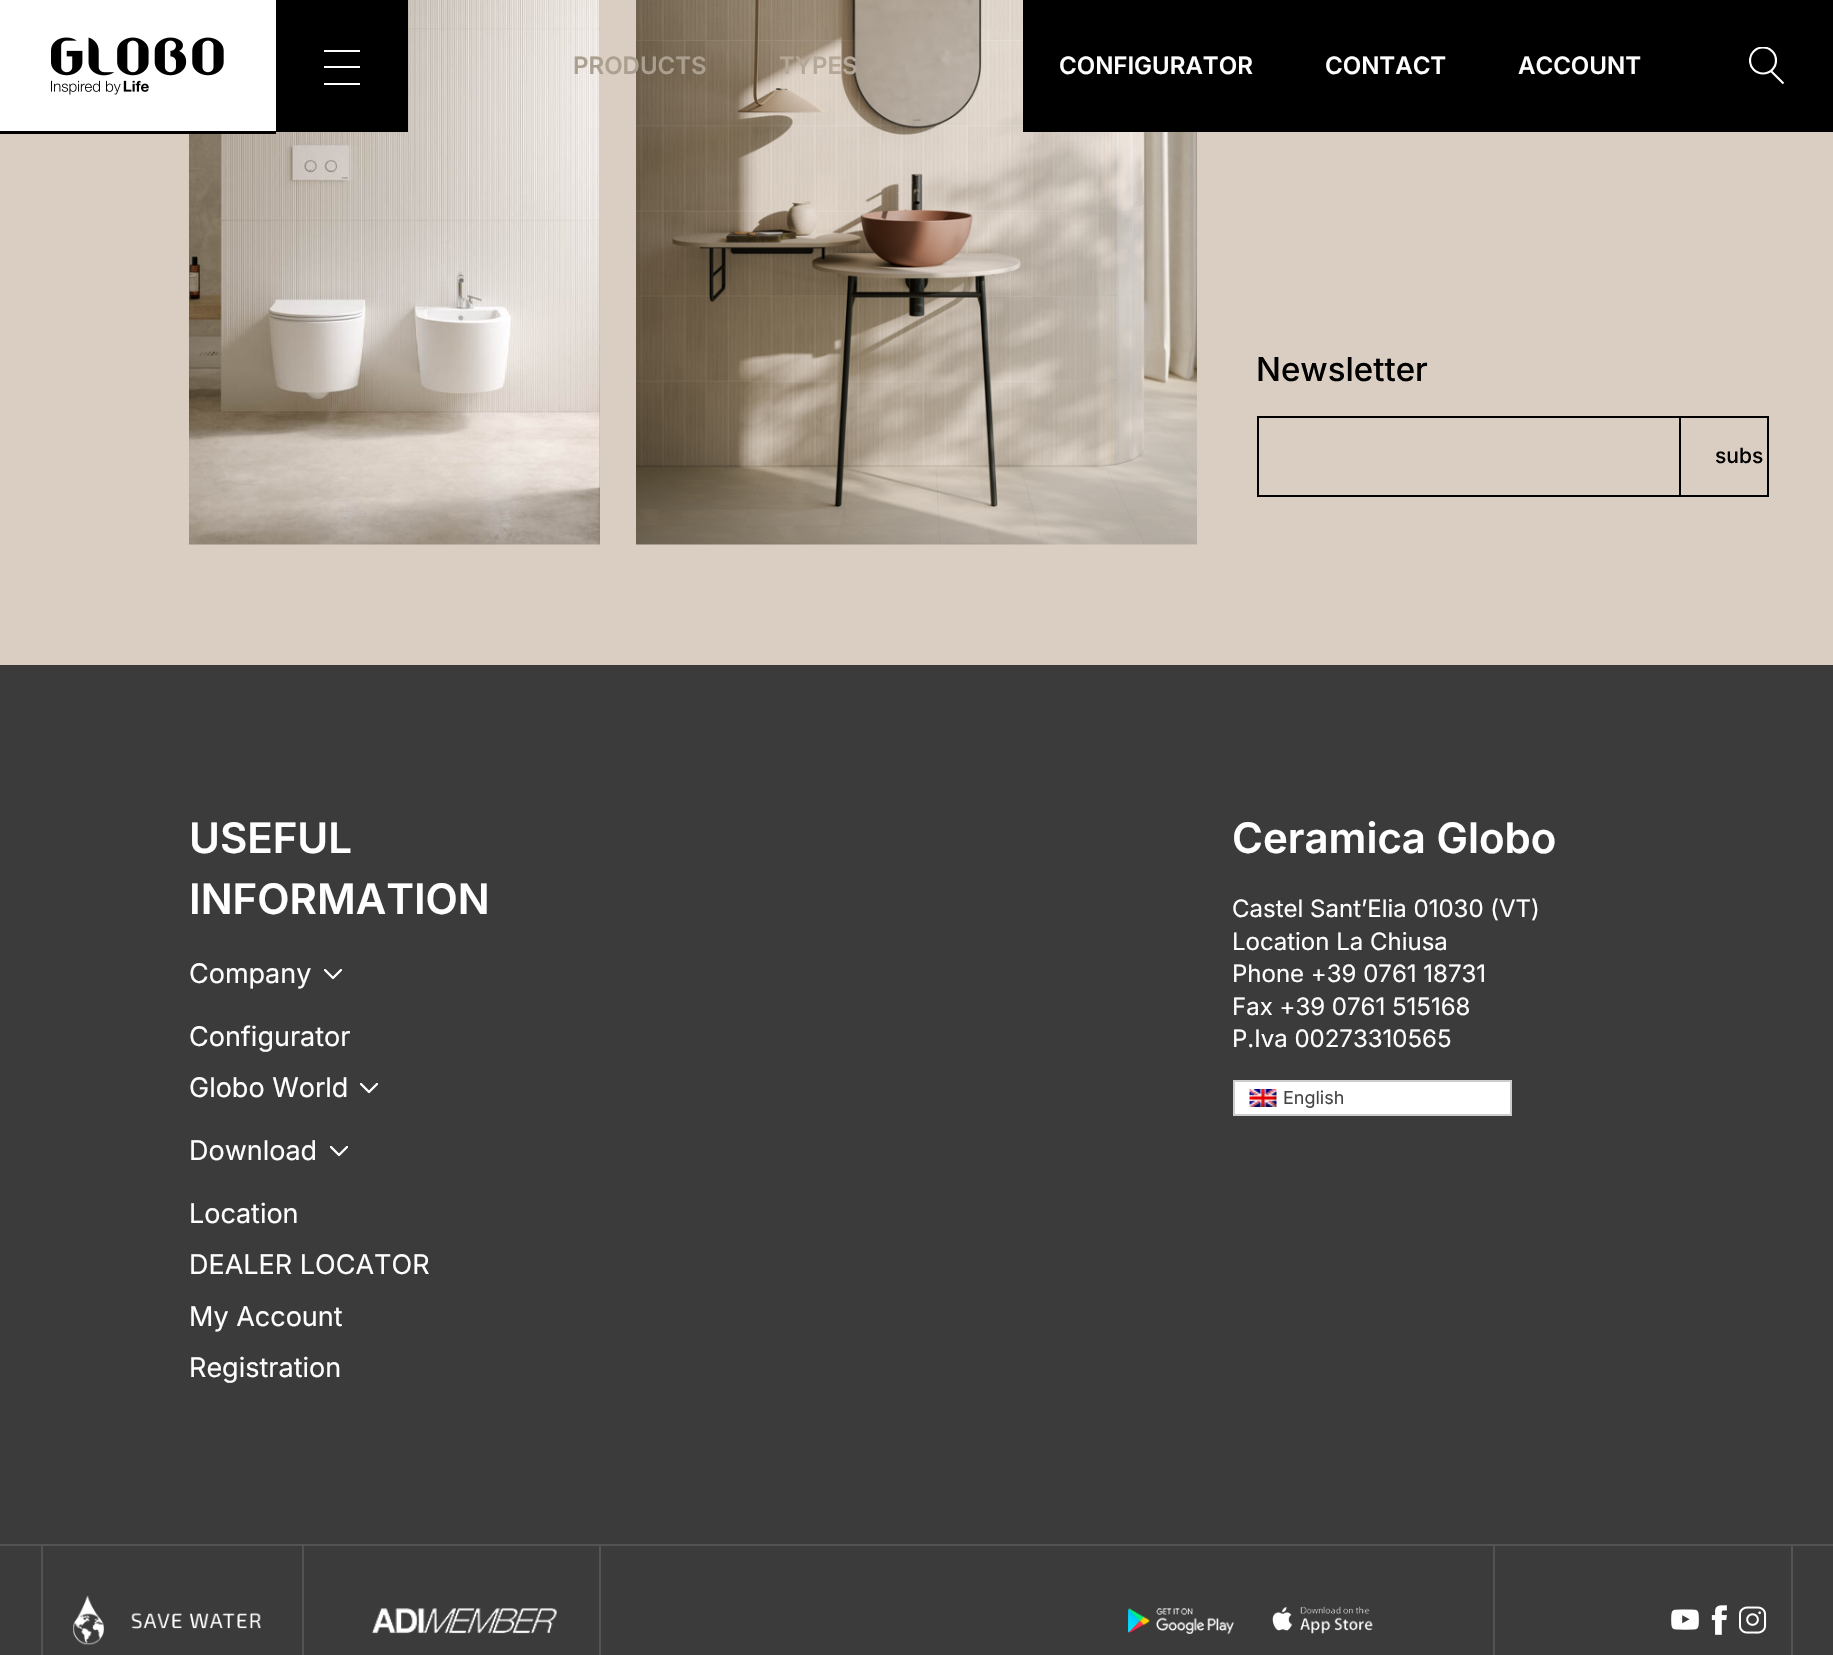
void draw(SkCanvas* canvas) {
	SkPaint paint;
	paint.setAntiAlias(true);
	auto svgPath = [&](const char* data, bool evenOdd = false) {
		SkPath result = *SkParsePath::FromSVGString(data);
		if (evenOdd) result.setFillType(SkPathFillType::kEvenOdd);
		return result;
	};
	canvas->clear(0xffd9cec1);
	canvas->drawImageRect(SkImages::DeferredFromEncodedData(SkData::MakeFromFileName("img2.png")), SkRect::MakeXYWH(189, 0, 411, 545), SkSamplingOptions());
	paint.setColor(0xffffffff);
	canvas->drawRect(SkRect::MakeXYWH(0, 0, 276, 131), paint);
	canvas->drawImageRect(SkImages::DeferredFromEncodedData(SkData::MakeFromFileName("img1.png")), SkRect::MakeXYWH(51, 37, 173, 58), SkSamplingOptions());
	paint.setColor(0xff000000);
	canvas->drawRect(SkRect::MakeXYWH(0, 131, 276, 3), paint);
	canvas->drawRect(SkRect::MakeXYWH(276, 0, 132, 132), paint);
	paint.setColor(0xffffffff);
	canvas->drawRect(SkRect::MakeXYWH(324, 50, 36, 2), paint);
	canvas->drawRect(SkRect::MakeXYWH(324, 66, 36, 2), paint);
	canvas->drawRect(SkRect::MakeXYWH(324, 83, 36, 2), paint);
	canvas->drawImageRect(SkImages::DeferredFromEncodedData(SkData::MakeFromFileName("img3.png")), SkRect::MakeXYWH(636, 0, 561, 545), SkSamplingOptions());
	SkFont f1(fontMgr->matchFamilyStyle("Inter", SkFontStyle(600, SkFontStyle::kNormal_Width, SkFontStyle::kUpright_Slant)), 24);
	f1.setSubpixel(true);
	paint.setColor(0xffab9f90);
	canvas->drawString("PRODUCTS", 573, 74, f1, paint);
	paint.setColor(0xffb5a798);
	canvas->drawString("TYPES", 779, 74, f1, paint);
	paint.setColor(0xff000000);
	canvas->drawRect(SkRect::MakeXYWH(1023, 0, 810, 132), paint);
	paint.setColor(0xffffffff);
	canvas->drawString("CONFIGURATOR", 1059, 74, f1, paint);
	canvas->drawString("CONTACT", 1325, 74, f1, paint);
	canvas->drawString("ACCOUNT", 1518, 74, f1, paint);
	canvas->save();
	canvas->clipRect(SkRect::MakeXYWH(1749, 47, 36, 39));
	paint.setStroke(true);
	paint.setStrokeWidth(2.2);
	canvas->drawCircle(1763, 60.5, 13, paint);
	canvas->restore();
	canvas->drawPath(svgPath("M1771 71L1783.5 83.5"), paint);
	SkFont f2(fontMgr->matchFamilyStyle("Inter", SkFontStyle(500, SkFontStyle::kNormal_Width, SkFontStyle::kUpright_Slant)), 33);
	f2.setSubpixel(true);
	paint.setStroke(false);
	paint.setColor(0xff000000);
	canvas->drawString("Newsletter", 1256, 381, f2, paint);
	canvas->drawRect(SkRect::MakeXYWH(1257, 416, 422, 2), paint);
	canvas->drawRect(SkRect::MakeXYWH(1257, 495, 422, 2), paint);
	canvas->drawRect(SkRect::MakeXYWH(1257, 416, 2, 81), paint);
	paint.setStroke(true);
	paint.setStrokeWidth(2);
	canvas->drawRect(SkRect::MakeXYWH(1680, 417, 88, 79), paint);
	SkFont f3(fontMgr->matchFamilyStyle("Inter", SkFontStyle(500, SkFontStyle::kNormal_Width, SkFontStyle::kUpright_Slant)), 21);
	f3.setSubpixel(true);
	paint.setStroke(false);
	canvas->drawString("subs", 1715, 463, f3, paint);
	paint.setColor(0xff3b3b3b);
	canvas->drawRect(SkRect::MakeXYWH(0, 665, 1833, 990), paint);
	SkFont f4(fontMgr->matchFamilyStyle("Inter", SkFontStyle(600, SkFontStyle::kNormal_Width, SkFontStyle::kUpright_Slant)), 42);
	f4.setSubpixel(true);
	paint.setColor(0xffffffff);
	canvas->drawString("USEFUL", 189, 853, f4, paint);
	canvas->drawString("INFORMATION", 189, 914, f4, paint);
	SkFont f5(fontMgr->matchFamilyStyle("Inter", SkFontStyle::Normal()), 27);
	f5.setSubpixel(true);
	canvas->drawString("Company", 189, 983, f5, paint);
	canvas->save();
	canvas->clipRect(SkRect::MakeXYWH(324, 969, 18, 11));
	paint.setStroke(true);
	paint.setStrokeWidth(2.4);
	paint.setStrokeCap(SkPaint::kRound_Cap);
	paint.setStrokeJoin(SkPaint::kRound_Join);
	canvas->drawPath(svgPath("M325 970L333 978L341 970"), paint);
	canvas->restore();
	paint.setStroke(false);
	canvas->drawString("Configurator", 189, 1046, f5, paint);
	canvas->drawString("Globo World", 189, 1097, f5, paint);
	canvas->save();
	canvas->clipRect(SkRect::MakeXYWH(360, 1083, 18, 11));
	paint.setStroke(true);
	canvas->drawPath(svgPath("M361 1084L369 1092L377 1084"), paint);
	canvas->restore();
	paint.setStroke(false);
	canvas->drawString("Download", 189, 1160, f5, paint);
	canvas->save();
	canvas->clipRect(SkRect::MakeXYWH(330, 1146, 18, 11));
	paint.setStroke(true);
	canvas->drawPath(svgPath("M331 1147L339 1155L347 1147"), paint);
	canvas->restore();
	paint.setStroke(false);
	canvas->drawString("Location", 189, 1223, f5, paint);
	canvas->drawString("DEALER LOCATOR", 189, 1274, f5, paint);
	canvas->drawString("My Account", 189, 1326, f5, paint);
	canvas->drawString("Registration", 189, 1377, f5, paint);
	canvas->drawString("Ceramica Globo", 1232, 853, f4, paint);
	SkFont f6(fontMgr->matchFamilyStyle("Inter", SkFontStyle::Normal()), 24);
	f6.setSubpixel(true);
	canvas->drawString("Castel Sant’Elia 01030 (VT)", 1232, 917, f6, paint);
	canvas->drawString("Location La Chiusa", 1232, 950, f6, paint);
	canvas->drawString("Phone +39 0761 18731", 1232, 982, f6, paint);
	canvas->drawString("Fax +39 0761 515168", 1232, 1015, f6, paint);
	canvas->drawString("P.Iva 00273310565", 1232, 1047, f6, paint);
	canvas->drawRect(SkRect::MakeXYWH(1234, 1081, 277, 34), paint);
	paint.setStroke(true);
	paint.setStrokeWidth(2);
	paint.setStrokeCap(SkPaint::kButt_Cap);
	paint.setStrokeJoin(SkPaint::kMiter_Join);
	paint.setColor(0xffcdcdcd);
	canvas->drawRect(SkRect::MakeXYWH(1234, 1081, 277, 34), paint);
	canvas->drawImageRect(SkImages::DeferredFromEncodedData(SkData::MakeFromFileName("img4.png")), SkRect::MakeXYWH(1249, 1089, 28, 18), SkSamplingOptions());
	SkFont f7(fontMgr->matchFamilyStyle("Inter", SkFontStyle::Normal()), 18);
	f7.setSubpixel(true);
	paint.setStroke(false);
	paint.setColor(0xff444444);
	canvas->drawString("English", 1283, 1104, f7, paint);
	paint.setColor(0xff535353);
	canvas->drawRect(SkRect::MakeXYWH(0, 1544, 1833, 2), paint);
	canvas->drawRect(SkRect::MakeXYWH(302, 1545, 2, 110), paint);
	canvas->drawRect(SkRect::MakeXYWH(41, 1545, 2, 110), paint);
	canvas->drawImageRect(SkImages::DeferredFromEncodedData(SkData::MakeFromFileName("img5.png")), SkRect::MakeXYWH(73, 1595, 188, 50), SkSamplingOptions());
	canvas->drawRect(SkRect::MakeXYWH(599, 1545, 2, 110), paint);
	canvas->drawImageRect(SkImages::DeferredFromEncodedData(SkData::MakeFromFileName("img6.png")), SkRect::MakeXYWH(372, 1608, 185, 26), SkSamplingOptions());
	canvas->drawRect(SkRect::MakeXYWH(1493, 1545, 2, 110), paint);
	canvas->drawImageRect(SkImages::DeferredFromEncodedData(SkData::MakeFromFileName("img7.png")), SkRect::MakeXYWH(1128, 1608, 106, 26), SkSamplingOptions());
	canvas->drawImageRect(SkImages::DeferredFromEncodedData(SkData::MakeFromFileName("img8.png")), SkRect::MakeXYWH(1272, 1606, 101, 28), SkSamplingOptions());
	canvas->drawRect(SkRect::MakeXYWH(1791, 1545, 2, 110), paint);
	canvas->drawImageRect(SkImages::DeferredFromEncodedData(SkData::MakeFromFileName("img9.png")), SkRect::MakeXYWH(1671, 1609, 28, 21), SkSamplingOptions());
	canvas->drawImageRect(SkImages::DeferredFromEncodedData(SkData::MakeFromFileName("img10.png")), SkRect::MakeXYWH(1711, 1605, 16, 30), SkSamplingOptions());
	canvas->drawImageRect(SkImages::DeferredFromEncodedData(SkData::MakeFromFileName("img11.png")), SkRect::MakeXYWH(1739, 1606, 28, 28), SkSamplingOptions());
}
